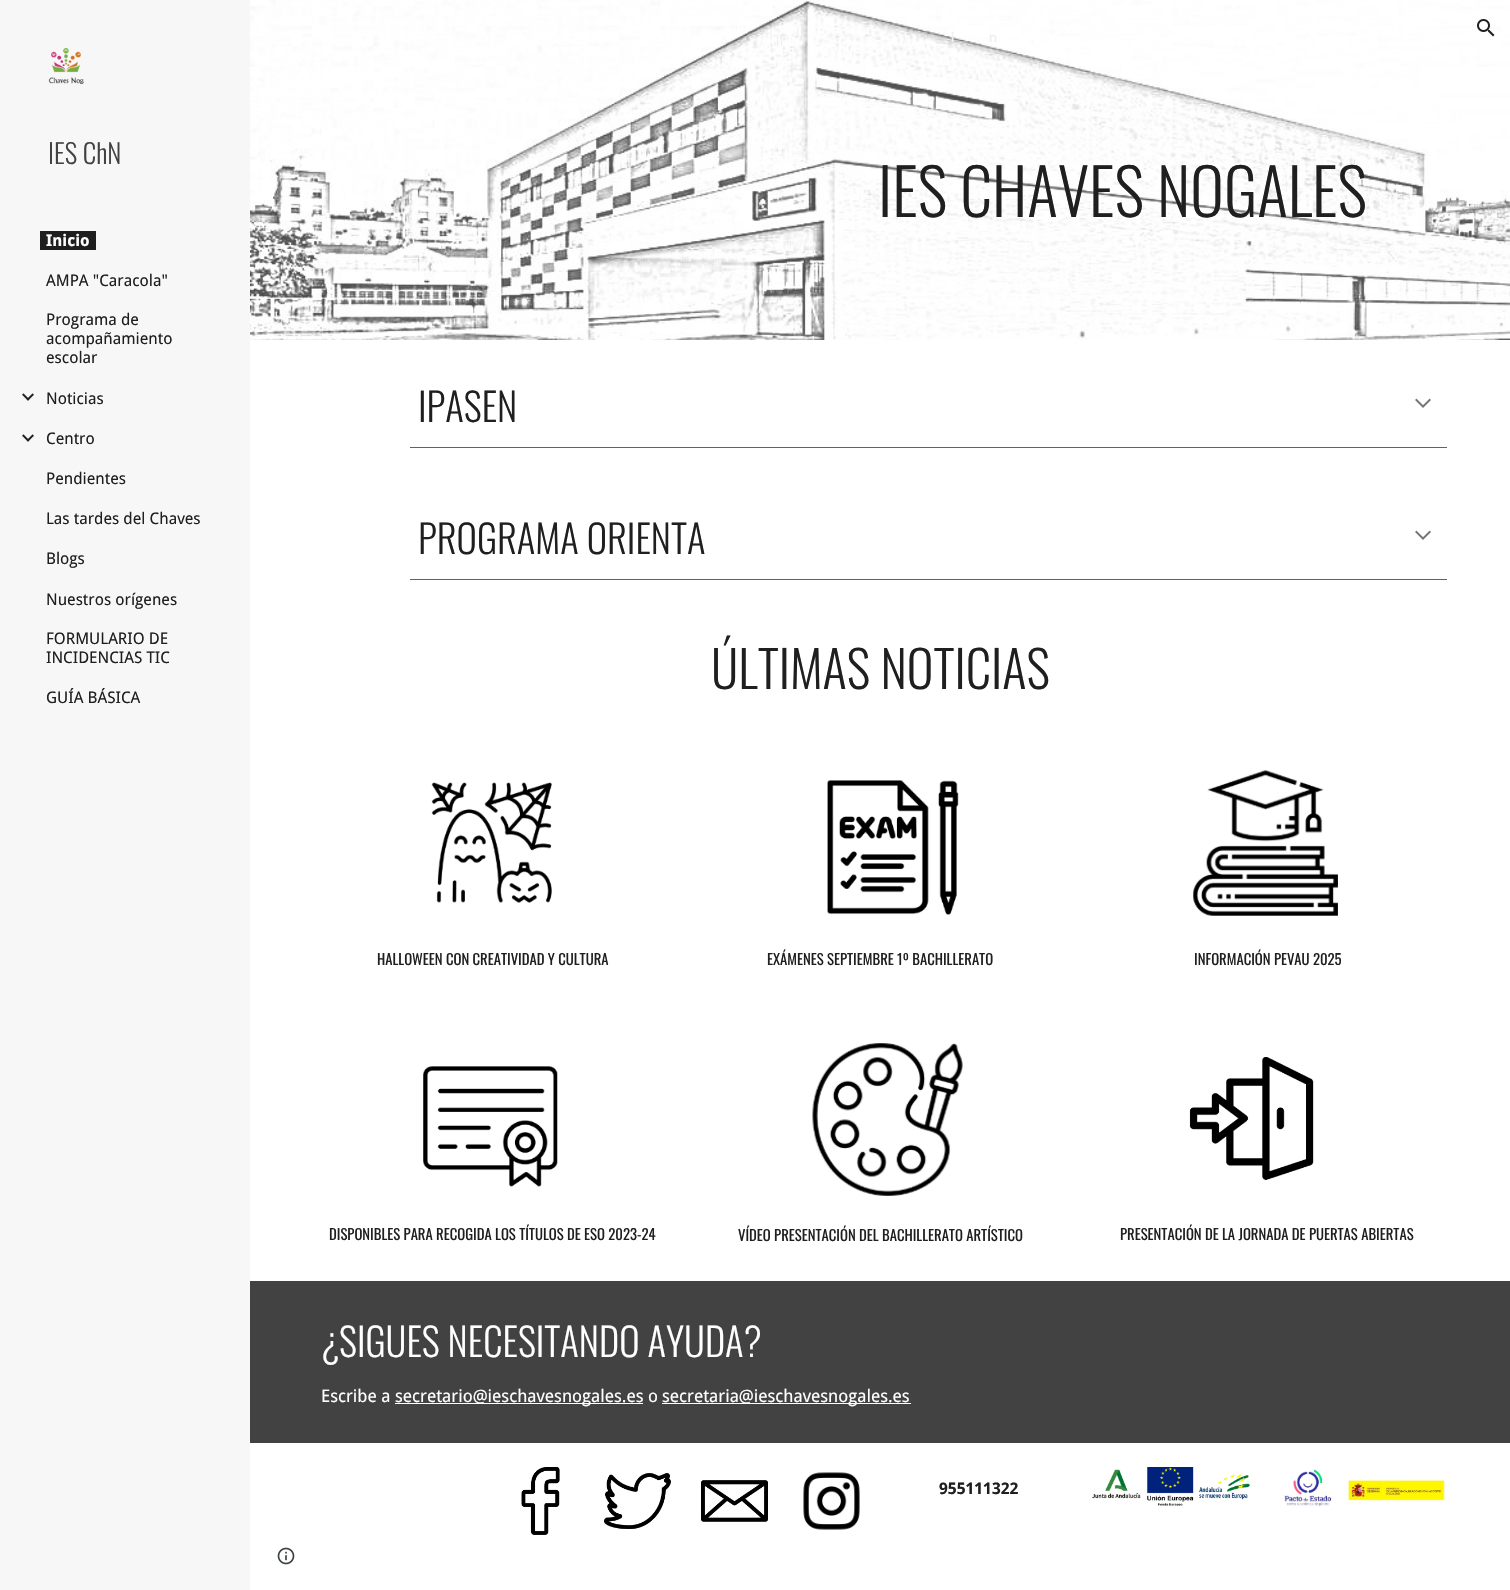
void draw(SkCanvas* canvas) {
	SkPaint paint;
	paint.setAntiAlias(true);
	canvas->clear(0xffffffff);
	canvas->drawImageRect(SkImages::DeferredFromEncodedData(SkData::MakeFromFileName("img4.png")), SkRect::MakeXYWH(250, 0, 1260, 340), SkSamplingOptions());
	SkFont f1(fontMgr->matchFamilyStyle("Google Sans", SkFontStyle(500, SkFontStyle::kNormal_Width, SkFontStyle::kUpright_Slant)), 14);
	f1.setSubpixel(true);
	paint.setColor(0xffefefef);
	canvas->drawString("i", 951, 42, f1, paint);
	canvas->drawString("n", 989, 42, f1, paint);
	canvas->drawImageRect(SkImages::DeferredFromEncodedData(SkData::MakeFromFileName("img1.png")), SkRect::MakeXYWH(1477, 19, 18, 18), SkSamplingOptions());
	paint.setColor(0xfff7f7f7);
	canvas->drawRect(SkRect::MakeXYWH(0, 0, 250, 1590), paint);
	canvas->drawImageRect(SkImages::DeferredFromEncodedData(SkData::MakeFromFileName("img2.png")), SkRect::MakeXYWH(48, 48, 36, 36), SkSamplingOptions());
	SkFont f2(fontMgr->matchFamilyStyle("Oswald", SkFontStyle(300, SkFontStyle::kNormal_Width, SkFontStyle::kUpright_Slant)), 27);
	f2.setSubpixel(true);
	paint.setColor(0xff424242);
	canvas->drawString("IES ChN", 48, 164, f2, paint);
	paint.setColor(0xff1f1f1f);
	canvas->drawRect(SkRect::MakeXYWH(40, 231, 56, 19), paint);
	SkFont f3(fontMgr->matchFamilyStyle("Droid Sans", SkFontStyle::Bold()), 16);
	f3.setSubpixel(true);
	paint.setColor(0xffffffff);
	canvas->drawString("Inicio", 46, 246, f3, paint);
	SkFont f4(fontMgr->matchFamilyStyle("Droid Sans", SkFontStyle::Normal()), 16);
	f4.setSubpixel(true);
	paint.setColor(0xff1f1f1f);
	canvas->drawString("AMPA \"Caracola\"", 46, 286, f4, paint);
	canvas->drawString("Programa de", 46, 325, f4, paint);
	canvas->drawString("acompañamiento", 46, 344, f4, paint);
	canvas->drawString("escolar", 46, 363, f4, paint);
	canvas->drawImageRect(SkImages::DeferredFromEncodedData(SkData::MakeFromFileName("img3.png")), SkRect::MakeXYWH(22, 393, 12, 8), SkSamplingOptions());
	canvas->drawString("Noticias", 46, 404, f4, paint);
	canvas->drawImageRect(SkImages::DeferredFromEncodedData(SkData::MakeFromFileName("img3.png")), SkRect::MakeXYWH(22, 434, 12, 8), SkSamplingOptions());
	canvas->drawString("Centro", 46, 444, f4, paint);
	canvas->drawString("Pendientes", 46, 484, f4, paint);
	canvas->drawString("Las tardes del Chaves", 46, 524, f4, paint);
	canvas->drawString("Blogs", 46, 564, f4, paint);
	canvas->drawString("Nuestros orígenes", 46, 605, f4, paint);
	canvas->drawString("FORMULARIO DE", 46, 644, f4, paint);
	canvas->drawString("INCIDENCIAS TIC", 46, 663, f4, paint);
	canvas->drawString("GUÍA BÁSICA", 46, 703, f4, paint);
	SkFont f5(fontMgr->matchFamilyStyle("Oswald", SkFontStyle(300, SkFontStyle::kNormal_Width, SkFontStyle::kUpright_Slant)), 64);
	f5.setSubpixel(true);
	canvas->drawString("IES CHAVES NOGALES", 878, 217, f5, paint);
	paint.setColor(0xff5f6368);
	canvas->drawRect(SkRect::MakeXYWH(410, 447, 1037, 1), paint);
	SkFont f6(fontMgr->matchFamilyStyle("Oswald", SkFontStyle(300, SkFontStyle::kNormal_Width, SkFontStyle::kUpright_Slant)), 38.75);
	f6.setSubpixel(true);
	paint.setColor(0xff1f1f1f);
	canvas->drawString("IPASEN", 418, 422, f6, paint);
	canvas->drawImageRect(SkImages::DeferredFromEncodedData(SkData::MakeFromFileName("img5.png")), SkRect::MakeXYWH(1415, 398, 16, 10), SkSamplingOptions());
	paint.setColor(0xff5f6368);
	canvas->drawRect(SkRect::MakeXYWH(410, 579, 1037, 1), paint);
	paint.setColor(0xff1f1f1f);
	canvas->drawString("PROGRAMA ORIENTA", 418, 554, f6, paint);
	canvas->drawImageRect(SkImages::DeferredFromEncodedData(SkData::MakeFromFileName("img5.png")), SkRect::MakeXYWH(1415, 530, 16, 10), SkSamplingOptions());
	SkFont f7(fontMgr->matchFamilyStyle("Oswald", SkFontStyle(300, SkFontStyle::kNormal_Width, SkFontStyle::kUpright_Slant)), 50.75);
	f7.setSubpixel(true);
	canvas->drawString("ÚLTIMAS NOTICIAS", 711, 689, f7, paint);
	canvas->drawImageRect(SkImages::DeferredFromEncodedData(SkData::MakeFromFileName("img6.png")), SkRect::MakeXYWH(431, 782, 121, 121), SkSamplingOptions());
	SkFont f8(fontMgr->matchFamilyStyle("Oswald", SkFontStyle::Normal()), 14.7);
	f8.setSubpixel(true);
	canvas->drawString("HALLOWEEN CON CREATIVIDAD Y CULTURA", 377, 965, f8, paint);
	canvas->drawImageRect(SkImages::DeferredFromEncodedData(SkData::MakeFromFileName("img7.png")), SkRect::MakeXYWH(827, 780, 132, 135), SkSamplingOptions());
	canvas->drawString("EXÁMENES SEPTIEMBRE 1º BACHILLERATO", 767, 965, f8, paint);
	canvas->drawImageRect(SkImages::DeferredFromEncodedData(SkData::MakeFromFileName("img8.png")), SkRect::MakeXYWH(1193, 770, 145, 146), SkSamplingOptions());
	canvas->drawString("INFORMACIÓN PEVAU 2025", 1194, 965, f8, paint);
	canvas->drawImageRect(SkImages::DeferredFromEncodedData(SkData::MakeFromFileName("img9.png")), SkRect::MakeXYWH(423, 1066, 135, 121), SkSamplingOptions());
	canvas->drawString("DISPONIBLES PARA RECOGIDA LOS TÍTULOS DE ESO 2023-24", 329, 1240, f8, paint);
	canvas->drawImageRect(SkImages::DeferredFromEncodedData(SkData::MakeFromFileName("img10.png")), SkRect::MakeXYWH(812, 1043, 151, 153), SkSamplingOptions());
	canvas->drawString("VÍDEO PRESENTACIÓN DEL BACHILLERATO ARTÍSTICO", 738, 1241, f8, paint);
	canvas->drawImageRect(SkImages::DeferredFromEncodedData(SkData::MakeFromFileName("img11.png")), SkRect::MakeXYWH(1189, 1057, 125, 123), SkSamplingOptions());
	canvas->drawString("PRESENTACIÓN DE LA JORNADA DE PUERTAS ABIERTAS", 1120, 1240, f8, paint);
	paint.setColor(0xff424242);
	canvas->drawRect(SkRect::MakeXYWH(250, 1281, 1260, 162), paint);
	paint.setColor(0xffffffff);
	canvas->drawString("¿SIGUES NECESITANDO AYUDA?", 321, 1357, f6, paint);
	SkFont f9(fontMgr->matchFamilyStyle("Droid Sans", SkFontStyle::Normal()), 17.3);
	f9.setSubpixel(true);
	canvas->drawString("Escribe a", 321, 1402, f9, paint);
	canvas->drawRect(SkRect::MakeXYWH(395, 1403, 248, 1), paint);
	canvas->drawString("secretario@ieschavesnogales.es o", 395, 1402, f9, paint);
	canvas->drawRect(SkRect::MakeXYWH(662, 1403, 249, 1), paint);
	canvas->drawString("secretaria@ieschavesnogales.es", 662, 1402, f9, paint);
	canvas->drawImageRect(SkImages::DeferredFromEncodedData(SkData::MakeFromFileName("img12.png")), SkRect::MakeXYWH(521, 1467, 39, 68), SkSamplingOptions());
	canvas->drawImageRect(SkImages::DeferredFromEncodedData(SkData::MakeFromFileName("img13.png")), SkRect::MakeXYWH(604, 1473, 67, 56), SkSamplingOptions());
	canvas->drawImageRect(SkImages::DeferredFromEncodedData(SkData::MakeFromFileName("img14.png")), SkRect::MakeXYWH(701, 1480, 67, 42), SkSamplingOptions());
	canvas->drawImageRect(SkImages::DeferredFromEncodedData(SkData::MakeFromFileName("img15.png")), SkRect::MakeXYWH(803, 1472, 57, 58), SkSamplingOptions());
	paint.setColor(0xff1f1f1f);
	canvas->drawString("955111322", 939, 1494, f3, paint);
	canvas->drawImageRect(SkImages::DeferredFromEncodedData(SkData::MakeFromFileName("img16.png")), SkRect::MakeXYWH(1092, 1467, 158, 39), SkSamplingOptions());
	canvas->drawImageRect(SkImages::DeferredFromEncodedData(SkData::MakeFromFileName("img17.png")), SkRect::MakeXYWH(1284, 1469, 161, 38), SkSamplingOptions());
	canvas->drawImageRect(SkImages::DeferredFromEncodedData(SkData::MakeFromFileName("img18.png")), SkRect::MakeXYWH(277, 1547, 18, 18), SkSamplingOptions());
}
